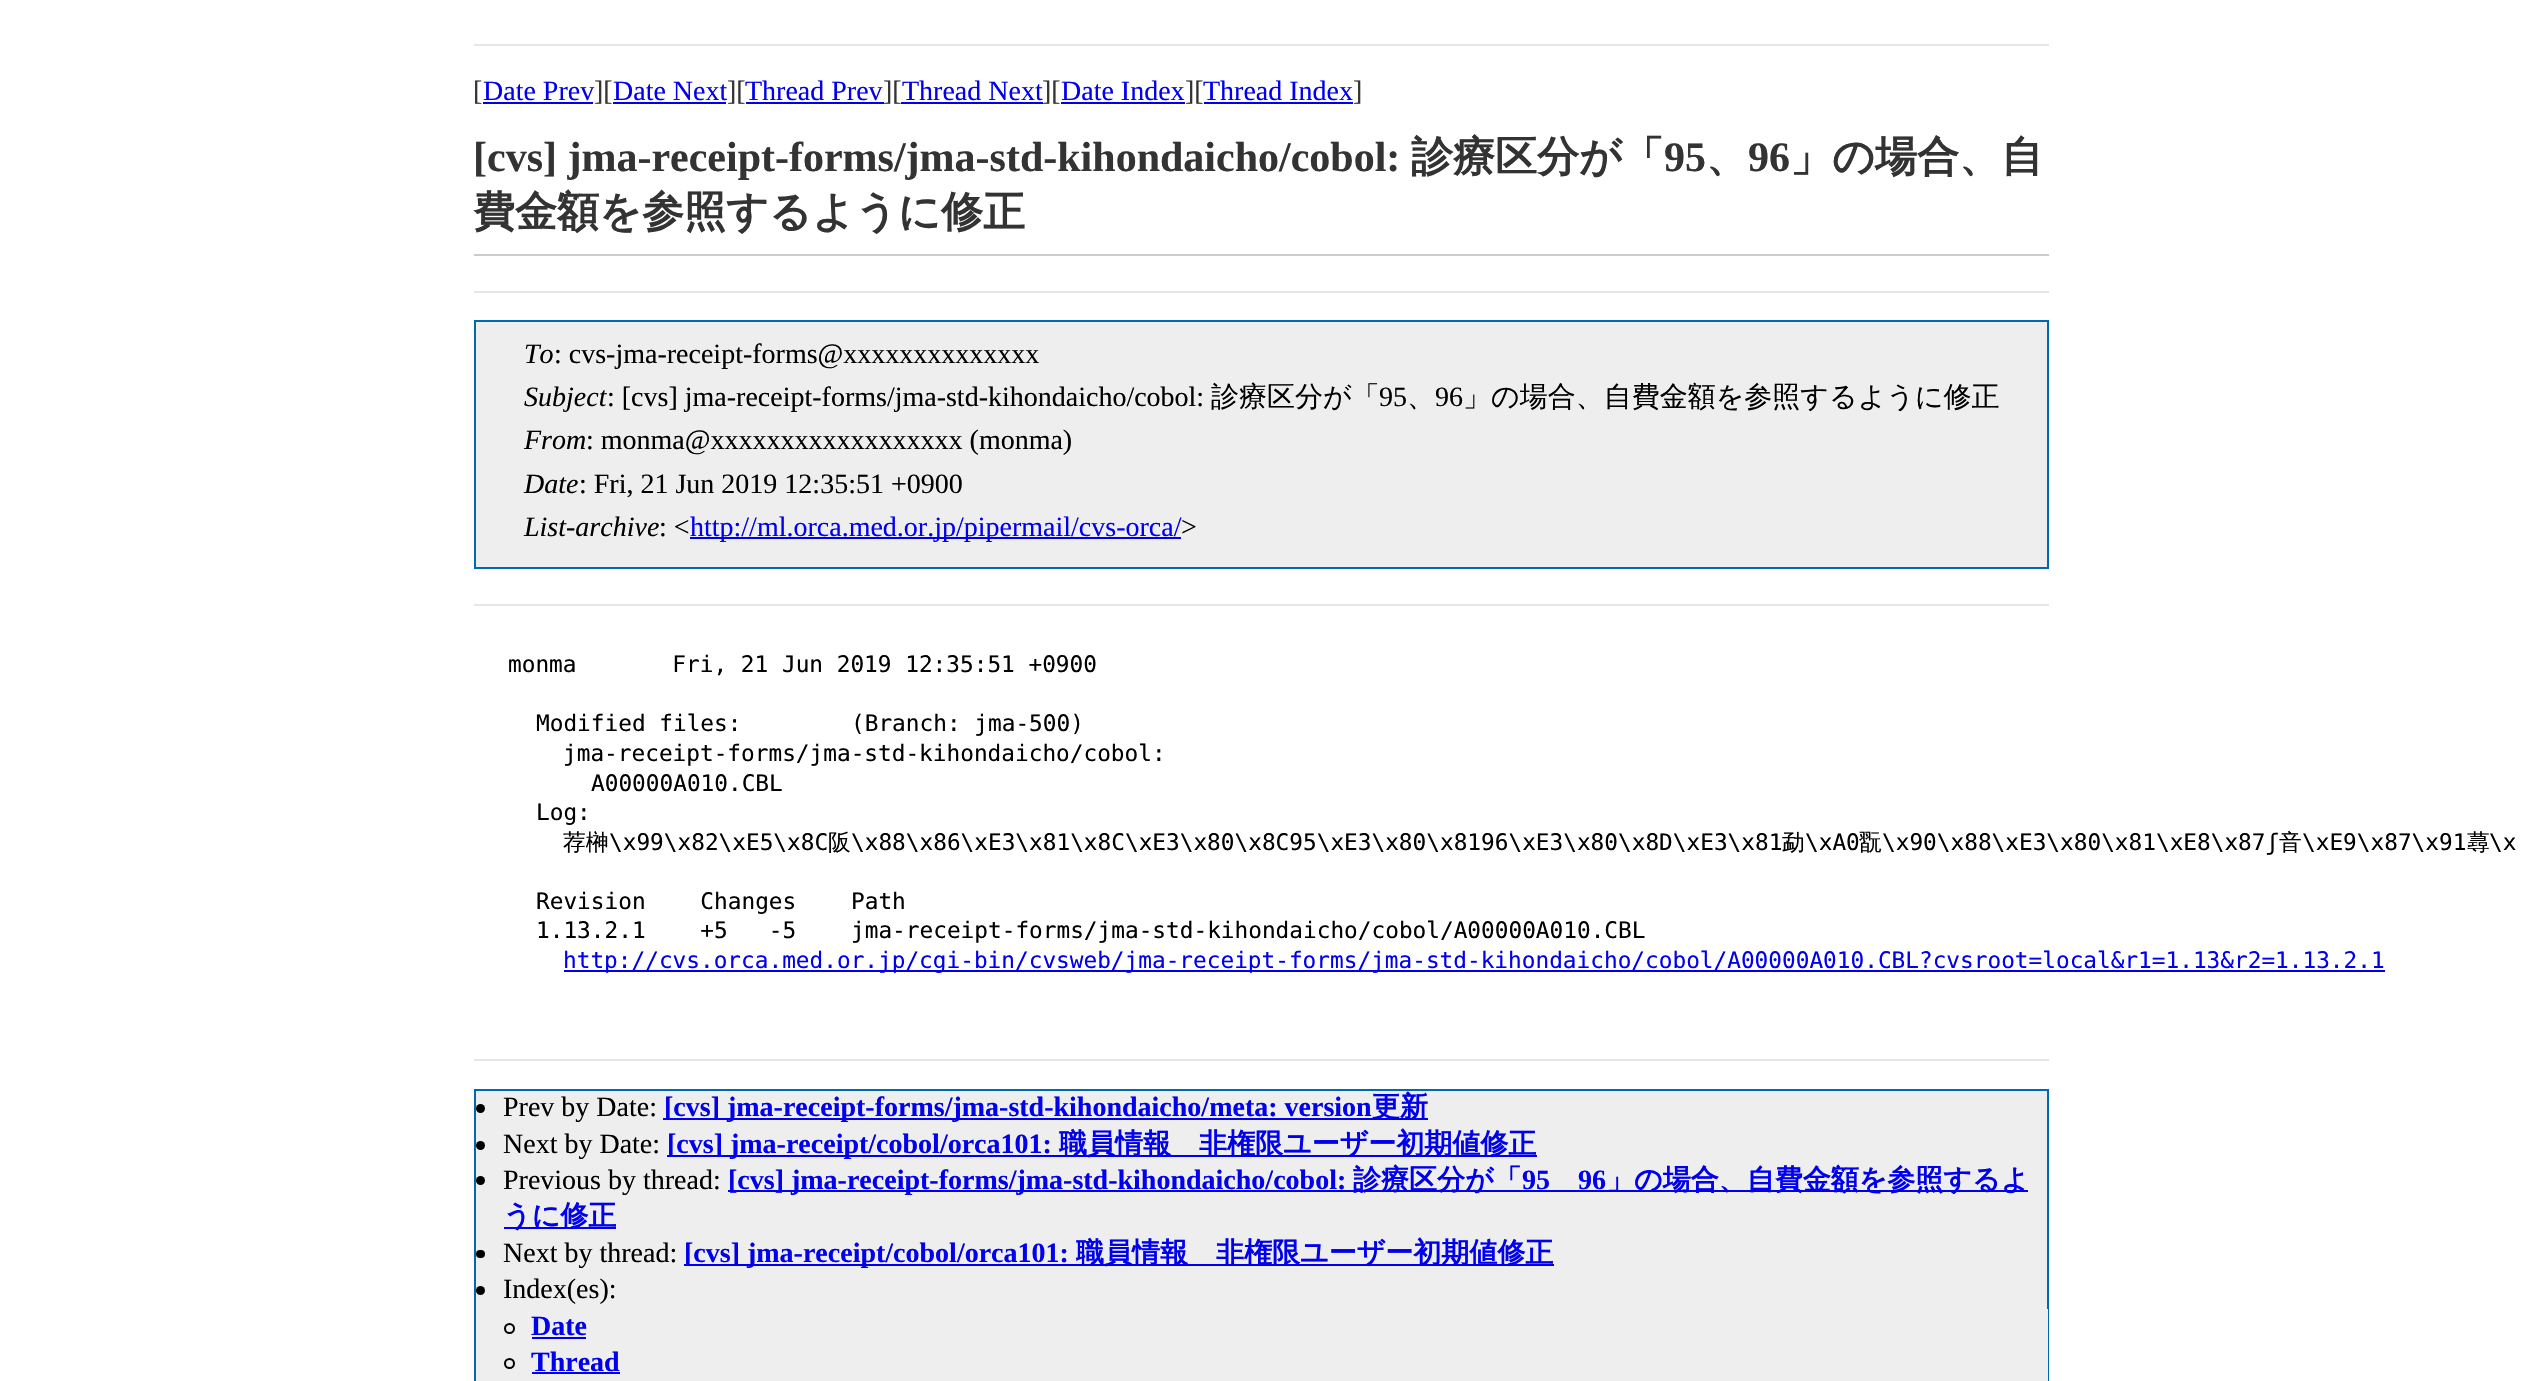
void draw(SkCanvas* canvas) {
	SkPaint paint;
	paint.setAntiAlias(true);
	canvas->clear(0xffffffff);
	paint.setColor(0xffe6e6e6);
	canvas->drawRect(SkRect::MakeXYWH(474, 44, 1575, 2), paint);
	SkFont f1(fontMgr->matchFamilyStyle("Liberation Serif", SkFontStyle::Normal()), 28);
	f1.setSubpixel(true);
	paint.setColor(0xff333333);
	canvas->drawString("[", 473, 100, f1, paint);
	paint.setColor(0xff0000ee);
	canvas->drawString("Date Prev", 483, 100, f1, paint);
	canvas->drawRect(SkRect::MakeXYWH(483, 102, 110, 2), paint);
	paint.setColor(0xff333333);
	canvas->drawString("][", 594, 100, f1, paint);
	paint.setColor(0xff0000ee);
	canvas->drawString("Date Next", 613, 100, f1, paint);
	canvas->drawRect(SkRect::MakeXYWH(613, 102, 113, 2), paint);
	paint.setColor(0xff333333);
	canvas->drawString("][", 727, 100, f1, paint);
	paint.setColor(0xff0000ee);
	canvas->drawString("Thread Prev", 745, 100, f1, paint);
	canvas->drawRect(SkRect::MakeXYWH(746, 102, 138, 2), paint);
	paint.setColor(0xff333333);
	canvas->drawString("][", 883, 100, f1, paint);
	paint.setColor(0xff0000ee);
	canvas->drawString("Thread Next", 902, 100, f1, paint);
	canvas->drawRect(SkRect::MakeXYWH(901, 102, 142, 2), paint);
	paint.setColor(0xff333333);
	canvas->drawString("][", 1042, 100, f1, paint);
	paint.setColor(0xff0000ee);
	canvas->drawString("Date Index", 1061, 100, f1, paint);
	canvas->drawRect(SkRect::MakeXYWH(1061, 102, 124, 2), paint);
	paint.setColor(0xff333333);
	canvas->drawString("][", 1185, 100, f1, paint);
	paint.setColor(0xff0000ee);
	canvas->drawString("Thread Index", 1203, 100, f1, paint);
	canvas->drawRect(SkRect::MakeXYWH(1204, 102, 149, 2), paint);
	paint.setColor(0xff333333);
	canvas->drawString("]", 1353, 100, f1, paint);
	paint.setColor(0xffcccccc);
	canvas->drawRect(SkRect::MakeXYWH(474, 254, 1575, 2), paint);
	SkFont f2(fontMgr->matchFamilyStyle("Liberation Serif", SkFontStyle::Bold()), 42);
	f2.setSubpixel(true);
	paint.setColor(0xff333333);
	canvas->drawString("[cvs] jma-receipt-forms/jma-std-kihondaicho/cobol:", 473, 171, f2, paint);
	SkFont f3(fontMgr->matchFamilyStyle("WenQuanYi Zen Hei", SkFontStyle::Bold()), 42);
	f3.setSubpixel(true);
	canvas->drawString("診療区分が「", 1411, 171, f3, paint);
	canvas->drawString("95", 1664, 171, f2, paint);
	canvas->drawString("、", 1706, 171, f3, paint);
	canvas->drawString("96", 1748, 171, f2, paint);
	canvas->drawString("」の場合、自", 1790, 171, f3, paint);
	canvas->drawString("費金額を参照するように修正", 473, 226, f3, paint);
	paint.setColor(0xffe6e6e6);
	canvas->drawRect(SkRect::MakeXYWH(474, 291, 1575, 2), paint);
	paint.setColor(0xffeeeeee);
	canvas->drawRect(SkRect::MakeXYWH(475, 321, 1573, 247), paint);
	paint.setStroke(true);
	paint.setStrokeWidth(2);
	paint.setColor(0xff006ab0);
	canvas->drawRect(SkRect::MakeXYWH(475, 321, 1573, 247), paint);
	SkFont f4(fontMgr->matchFamilyStyle("Liberation Serif", SkFontStyle::Italic()), 28);
	f4.setSubpixel(true);
	paint.setStroke(false);
	paint.setColor(0xff000000);
	canvas->drawString("To", 524, 363, f4, paint);
	canvas->drawString(": cvs-jma-receipt-forms@xxxxxxxxxxxxxx", 554, 363, f1, paint);
	canvas->drawString("Subject", 524, 406, f4, paint);
	canvas->drawString(": [cvs] jma-receipt-forms/jma-std-kihondaicho/cobol:", 607, 406, f1, paint);
	SkFont f5(fontMgr->matchFamilyStyle("WenQuanYi Zen Hei", SkFontStyle(500, SkFontStyle::kNormal_Width, SkFontStyle::kUpright_Slant)), 28);
	f5.setSubpixel(true);
	canvas->drawString("診療区分が「", 1211, 406, f5, paint);
	canvas->drawString("95", 1379, 406, f1, paint);
	canvas->drawString("、", 1407, 406, f5, paint);
	canvas->drawString("96", 1435, 406, f1, paint);
	canvas->drawString("」の場合、自費金額を参照するように修正", 1463, 406, f5, paint);
	canvas->drawString("From", 524, 449, f4, paint);
	canvas->drawString(": monma@xxxxxxxxxxxxxxxxxx (monma)", 586, 449, f1, paint);
	canvas->drawString("Date", 524, 493, f4, paint);
	canvas->drawString(": Fri, 21 Jun 2019 12:35:51 +0900", 579, 493, f1, paint);
	canvas->drawString("List-archive", 524, 536, f4, paint);
	canvas->drawString(": <", 659, 536, f1, paint);
	paint.setColor(0xff0000ee);
	canvas->drawRect(SkRect::MakeXYWH(690, 537, 491, 2), paint);
	canvas->drawString("http://ml.orca.med.or.jp/pipermail/cvs-orca/", 690, 536, f1, paint);
	paint.setColor(0xff000000);
	canvas->drawString(">", 1181, 536, f1, paint);
	paint.setColor(0xffe6e6e6);
	canvas->drawRect(SkRect::MakeXYWH(474, 604, 1575, 2), paint);
	SkFont f6(fontMgr->matchFamilyStyle("DejaVu Sans Mono", SkFontStyle::Normal()), 22.75);
	f6.setSubpixel(true);
	paint.setColor(0xff000000);
	canvas->drawString("monma       Fri, 21 Jun 2019 12:35:51 +0900", 508, 672, f6, paint);
	canvas->drawString("Modified files:        (Branch: jma-500)", 536, 731, f6, paint);
	canvas->drawString("jma-receipt-forms/jma-std-kihondaicho/cobol:", 563, 761, f6, paint);
	canvas->drawString("A00000A010.CBL", 591, 791, f6, paint);
	canvas->drawString("Log:", 536, 820, f6, paint);
	SkFont f7(fontMgr->matchFamilyStyle("WenQuanYi Zen Hei", SkFontStyle(500, SkFontStyle::kNormal_Width, SkFontStyle::kUpright_Slant)), 22.75);
	f7.setSubpixel(true);
	canvas->drawString("荐榊", 563, 850, f7, paint);
	canvas->drawString("\\x99\\x82\\xE5\\x8C", 609, 850, f6, paint);
	canvas->drawString("阪", 828, 850, f7, paint);
	canvas->drawString("\\x88\\x86\\xE3\\x81\\x8C\\xE3\\x80\\x8C95\\xE3\\x80\\x8196\\xE3\\x80\\x8D\\xE3\\x81", 851, 850, f6, paint);
	canvas->drawString("勐", 1782, 850, f7, paint);
	canvas->drawString("\\xA0", 1805, 850, f6, paint);
	canvas->drawString("翫", 1859, 850, f7, paint);
	canvas->drawString("\\x90\\x88\\xE3\\x80\\x81\\xE8\\x87ʃ", 1882, 850, f6, paint);
	canvas->drawString("音", 2279, 850, f7, paint);
	canvas->drawString("\\xE9\\x87\\x91", 2302, 850, f6, paint);
	canvas->drawString("蕁", 2467, 850, f7, paint);
	canvas->drawString("\\x", 2489, 850, f6, paint);
	canvas->drawString("Revision    Changes    Path", 536, 909, f6, paint);
	canvas->drawString("1.13.2.1    +5   -5    jma-receipt-forms/jma-std-kihondaicho/cobol/A00000A010.CBL", 536, 938, f6, paint);
	paint.setColor(0xff0000ee);
	canvas->drawRect(SkRect::MakeXYWH(564, 970, 1821, 2), paint);
	canvas->drawString("http://cvs.orca.med.or.jp/cgi-bin/cvsweb/jma-receipt-forms/jma-std-kihondaicho/cobol/A00000A010.CBL?cvsroot=local&r1=1.13&r2=1.13.2.1", 563, 968, f6, paint);
	paint.setColor(0xffe6e6e6);
	canvas->drawRect(SkRect::MakeXYWH(474, 1059, 1575, 2), paint);
	paint.setColor(0xffeeeeee);
	canvas->drawRect(SkRect::MakeXYWH(475, 1090, 1573, 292), paint);
	paint.setStroke(true);
	paint.setColor(0xff006ab0);
	canvas->drawRect(SkRect::MakeXYWH(475, 1090, 1573, 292), paint);
	paint.setStroke(false);
	paint.setColor(0xff000000);
	canvas->drawCircle(480.5, 1108.5, 4.5, paint);
	canvas->drawString("Prev by Date:", 503, 1116, f1, paint);
	paint.setColor(0xff0000ee);
	canvas->drawRect(SkRect::MakeXYWH(663, 1118, 765, 2), paint);
	SkFont f8(fontMgr->matchFamilyStyle("Liberation Serif", SkFontStyle::Bold()), 28);
	f8.setSubpixel(true);
	canvas->drawString("[cvs] jma-receipt-forms/jma-std-kihondaicho/meta: version", 664, 1116, f8, paint);
	SkFont f9(fontMgr->matchFamilyStyle("WenQuanYi Zen Hei", SkFontStyle::Bold()), 28);
	f9.setSubpixel(true);
	canvas->drawString("更新", 1372, 1116, f9, paint);
	paint.setColor(0xff000000);
	canvas->drawCircle(480.5, 1145.5, 4.5, paint);
	canvas->drawString("Next by Date:", 503, 1153, f1, paint);
	paint.setColor(0xff0000ee);
	canvas->drawRect(SkRect::MakeXYWH(667, 1155, 870, 2), paint);
	canvas->drawString("[cvs] jma-receipt/cobol/orca101:", 667, 1153, f8, paint);
	canvas->drawString("職員情報　非権限ユーザー初期値修正", 1059, 1153, f9, paint);
	paint.setColor(0xff000000);
	canvas->drawCircle(480.5, 1180.5, 4.5, paint);
	canvas->drawString("Previous by thread:", 503, 1189, f1, paint);
	paint.setColor(0xff0000ee);
	canvas->drawRect(SkRect::MakeXYWH(728, 1190, 1300, 2), paint);
	canvas->drawString("[cvs] jma-receipt-forms/jma-std-kihondaicho/cobol:", 728, 1189, f8, paint);
	canvas->drawString("診療区分が「", 1353, 1189, f9, paint);
	canvas->drawString("95", 1522, 1189, f8, paint);
	canvas->drawString("96", 1578, 1189, f8, paint);
	canvas->drawString("」の場合、自費金額を参照するよ", 1606, 1189, f9, paint);
	canvas->drawRect(SkRect::MakeXYWH(504, 1227, 112, 2), paint);
	canvas->drawString("うに修正", 503, 1225, f9, paint);
	paint.setColor(0xff000000);
	canvas->drawRoundRect(SkRect::MakeXYWH(476, 1250, 9, 8), 4, 4, paint);
	canvas->drawString("Next by thread:", 503, 1262, f1, paint);
	paint.setColor(0xff0000ee);
	canvas->drawRect(SkRect::MakeXYWH(684, 1264, 870, 2), paint);
	canvas->drawString("[cvs] jma-receipt/cobol/orca101:", 684, 1262, f8, paint);
	canvas->drawString("職員情報　非権限ユーザー初期値修正", 1076, 1262, f9, paint);
	paint.setColor(0xff000000);
	canvas->drawCircle(480.5, 1290.5, 4.5, paint);
	canvas->drawString("Index(es):", 503, 1298, f1, paint);
	paint.setColor(0xffeeeeee);
	canvas->drawRect(SkRect::MakeXYWH(2047, 1309, 1, 72), paint);
	paint.setStroke(true);
	paint.setColor(0xff000000);
	canvas->drawCircle(509.5, 1328.5, 4.5, paint);
	paint.setStroke(false);
	paint.setColor(0xff0000ee);
	canvas->drawString("Date", 531, 1335, f8, paint);
	canvas->drawRect(SkRect::MakeXYWH(532, 1337, 54, 2), paint);
	paint.setStroke(true);
	paint.setColor(0xff000000);
	canvas->drawCircle(509.5, 1363.5, 4.5, paint);
	paint.setStroke(false);
	paint.setColor(0xff0000ee);
	canvas->drawString("Thread", 531, 1371, f8, paint);
	canvas->drawRect(SkRect::MakeXYWH(532, 1372, 88, 2), paint);
}
